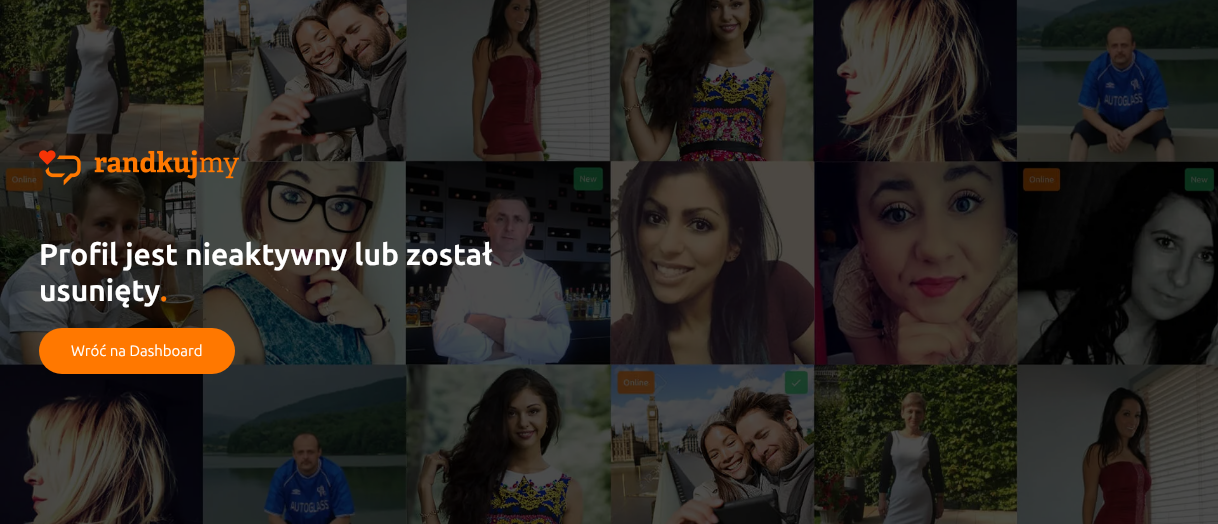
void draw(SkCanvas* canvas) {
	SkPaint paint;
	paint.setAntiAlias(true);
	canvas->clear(0xffffffff);
	canvas->drawImageRect(SkImages::DeferredFromEncodedData(SkData::MakeFromFileName("img1.png")), SkRect::MakeXYWH(0, 0, 1218, 524), SkSamplingOptions());
	canvas->drawImageRect(SkImages::DeferredFromEncodedData(SkData::MakeFromFileName("img2.png")), SkRect::MakeXYWH(39, 150, 200, 36), SkSamplingOptions());
	SkFont f1(fontMgr->matchFamilyStyle("Ubuntu", SkFontStyle::Bold()), 30);
	f1.setSubpixel(true);
	paint.setColor(0xffffffff);
	canvas->drawString("Profil jest nieaktywny lub został", 39, 265, f1, paint);
	canvas->drawString("usunięty", 39, 301, f1, paint);
	paint.setColor(0xffff7800);
	canvas->drawString(".", 160, 301, f1, paint);
	canvas->drawRoundRect(SkRect::MakeXYWH(39, 328, 196, 46), 23, 23, paint);
	SkFont f2(fontMgr->matchFamilyStyle("Ubuntu", SkFontStyle::Normal()), 15);
	f2.setSubpixel(true);
	paint.setColor(0xffffffff);
	canvas->drawString("Wróć na Dashboard", 71, 356, f2, paint);
}
